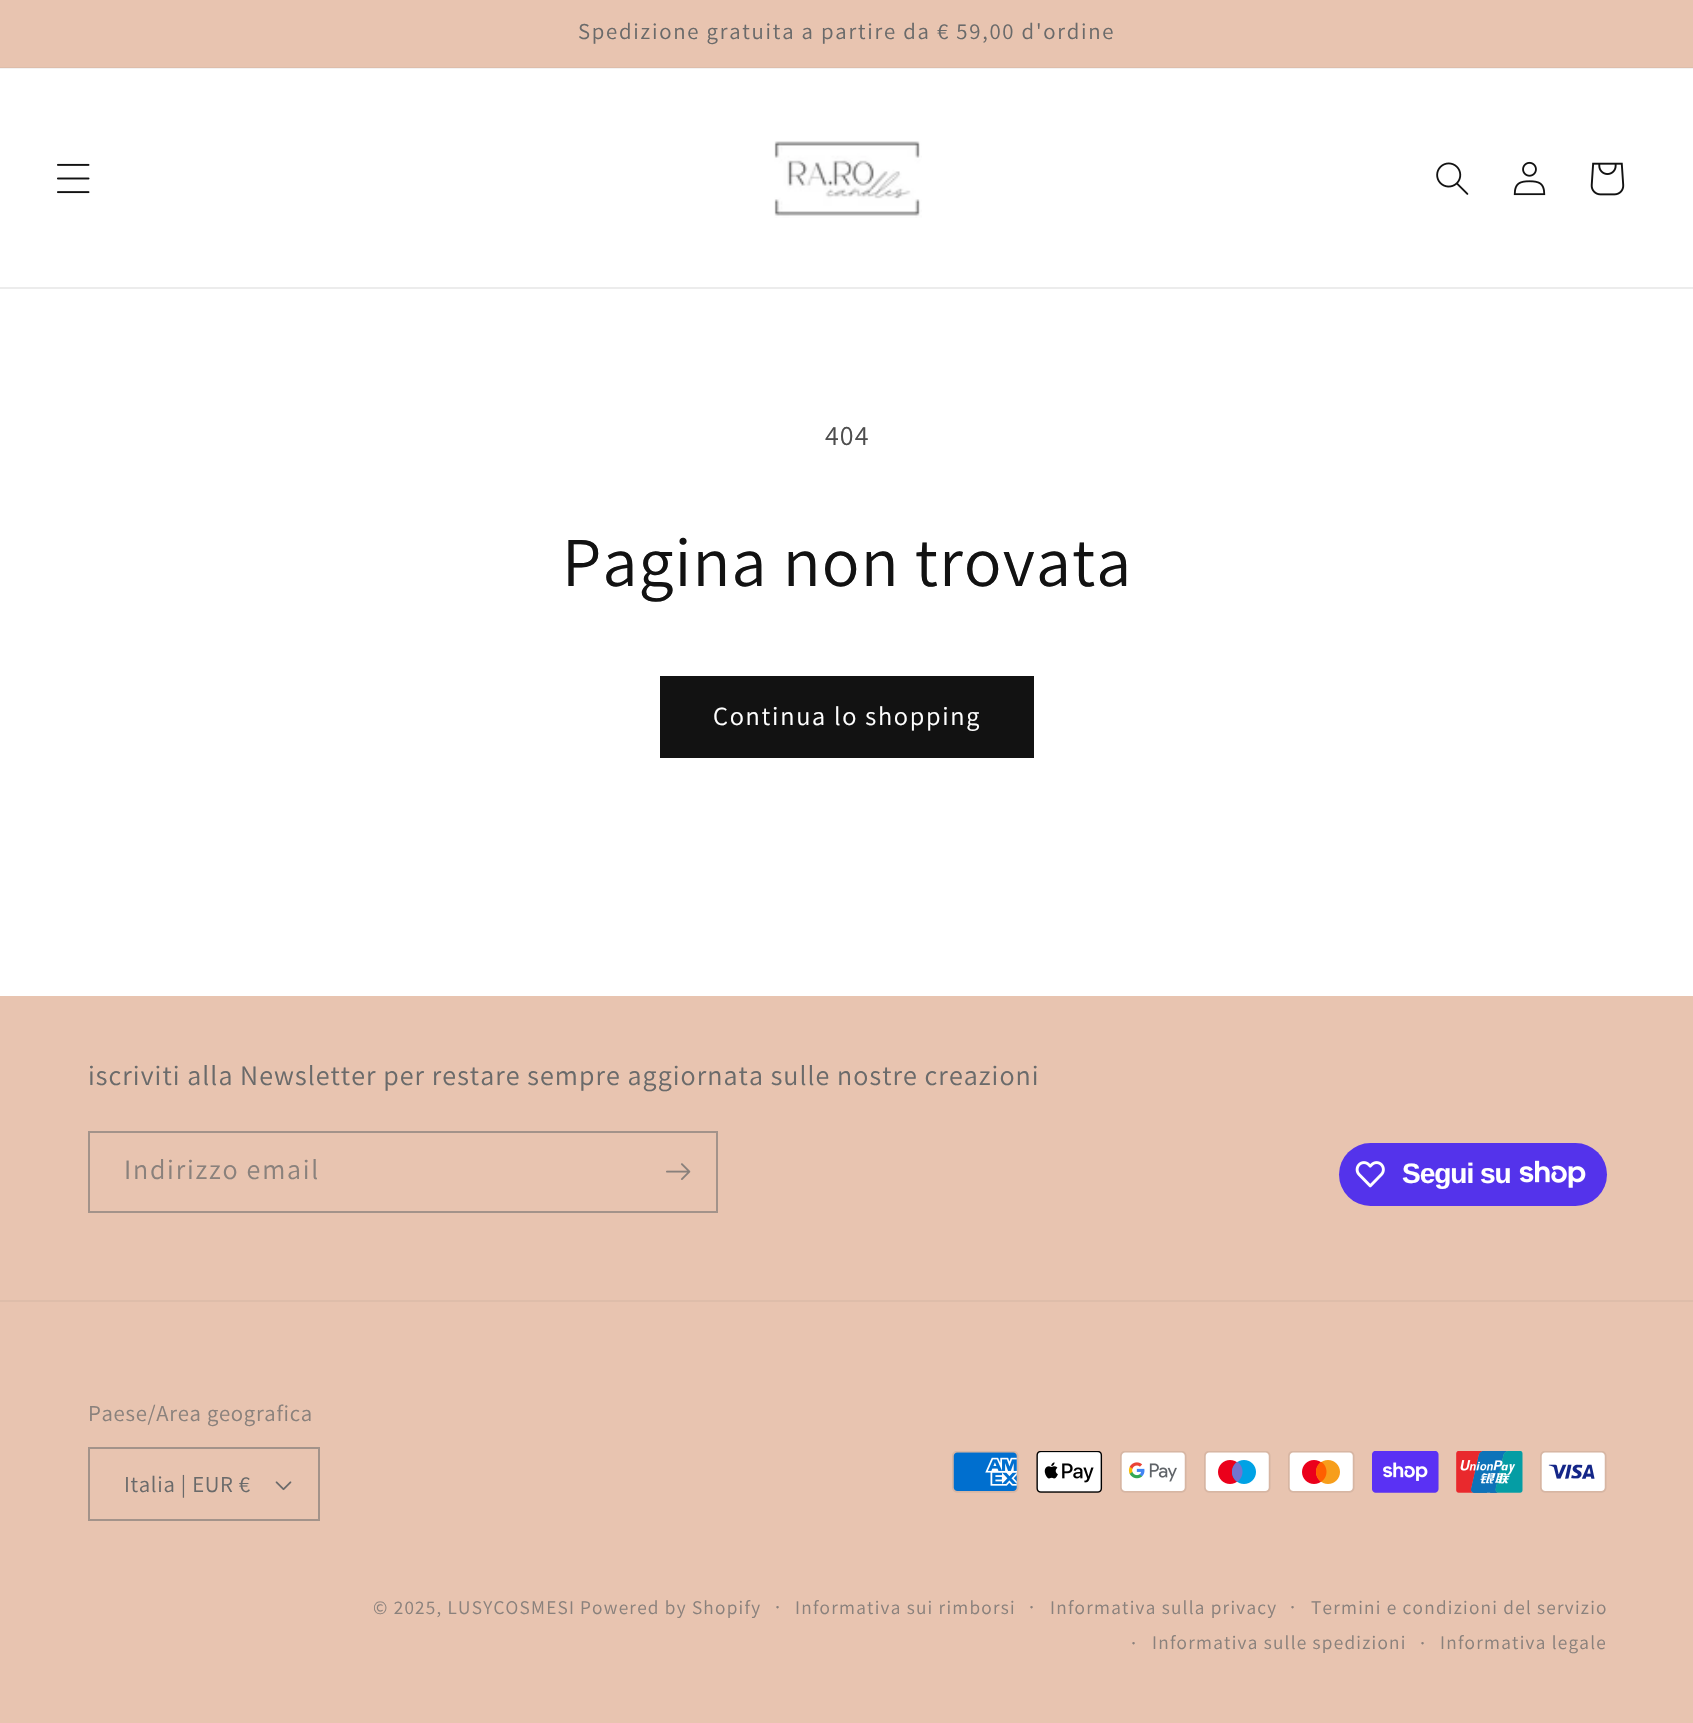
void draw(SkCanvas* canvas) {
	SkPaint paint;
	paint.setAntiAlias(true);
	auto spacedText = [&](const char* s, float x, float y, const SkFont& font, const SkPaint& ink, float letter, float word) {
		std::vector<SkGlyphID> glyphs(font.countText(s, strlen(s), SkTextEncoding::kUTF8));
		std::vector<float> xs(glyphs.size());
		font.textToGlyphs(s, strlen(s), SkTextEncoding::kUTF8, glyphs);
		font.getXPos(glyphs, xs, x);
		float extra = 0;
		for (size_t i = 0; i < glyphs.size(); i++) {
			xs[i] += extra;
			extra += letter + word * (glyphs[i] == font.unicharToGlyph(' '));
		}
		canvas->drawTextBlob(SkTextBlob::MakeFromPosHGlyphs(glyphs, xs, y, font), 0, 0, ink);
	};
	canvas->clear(0xffffffff);
	paint.setColor(0xfff3f3f3);
	canvas->drawRect(SkRect::MakeXYWH(0, 68, 1693, 1), paint);
	paint.setColor(0xffe8c4b0);
	canvas->drawRect(SkRect::MakeXYWH(0, 0, 1693, 67), paint);
	paint.setColor(0xffdebdaa);
	canvas->drawRect(SkRect::MakeXYWH(0, 67, 1693, 1), paint);
	SkFont f1(fontMgr->matchFamilyStyle("Assistant", SkFontStyle::Normal()), 22.75);
	f1.setSubpixel(true);
	paint.setColor(0xff6a6a6a);
	spacedText("Spedizione gratuita a partire da € 59,00 d'ordine", 578, 39, f1, paint, 1.75, 0);
	paint.setColor(0xffececec);
	canvas->drawRect(SkRect::MakeXYWH(0, 287, 1693, 2), paint);
	canvas->drawImageRect(SkImages::DeferredFromEncodedData(SkData::MakeFromFileName("img1.png")), SkRect::MakeXYWH(57, 163, 33, 31), SkSamplingOptions());
	canvas->drawImageRect(SkImages::DeferredFromEncodedData(SkData::MakeFromFileName("img2.png")), SkRect::MakeXYWH(774, 141, 148, 77), SkSamplingOptions());
	canvas->drawImageRect(SkImages::DeferredFromEncodedData(SkData::MakeFromFileName("img3.png")), SkRect::MakeXYWH(1436, 162, 33, 33), SkSamplingOptions());
	canvas->drawImageRect(SkImages::DeferredFromEncodedData(SkData::MakeFromFileName("img4.png")), SkRect::MakeXYWH(1513, 161, 33, 35), SkSamplingOptions());
	canvas->drawImageRect(SkImages::DeferredFromEncodedData(SkData::MakeFromFileName("img5.png")), SkRect::MakeXYWH(1590, 162, 35, 34), SkSamplingOptions());
	SkFont f2(fontMgr->matchFamilyStyle("Assistant", SkFontStyle::Normal()), 28);
	f2.setSubpixel(true);
	paint.setColor(0xff4d4d4d);
	spacedText("404", 825, 445, f2, paint, 1.05, 0);
	SkFont f3(fontMgr->matchFamilyStyle("Assistant", SkFontStyle::Normal()), 70);
	f3.setSubpixel(true);
	paint.setColor(0xff121212);
	spacedText("Pagina non trovata", 562, 586, f3, paint, 1.05, 0);
	canvas->drawRect(SkRect::MakeXYWH(660, 676, 374, 82), paint);
	SkFont f4(fontMgr->matchFamilyStyle("Assistant", SkFontStyle::Normal()), 26.25);
	f4.setSubpixel(true);
	paint.setColor(0xffffffff);
	spacedText("Continua lo shopping", 713, 725, f4, paint, 1.75, 0);
	paint.setColor(0xffe8c4b0);
	canvas->drawRect(SkRect::MakeXYWH(0, 996, 1693, 727), paint);
	paint.setColor(0xff6a6a6a);
	spacedText("iscriviti alla Newsletter per restare sempre aggiornata sulle nostre creazioni", 88, 1085, f2, paint, 1.05, 0);
	paint.setStroke(true);
	paint.setStrokeWidth(2);
	paint.setColor(0xffa3938a);
	canvas->drawRect(SkRect::MakeXYWH(89, 1132, 628, 80), paint);
	paint.setStroke(false);
	paint.setColor(0xff8a817c);
	spacedText("Indirizzo email", 124, 1179, f2, paint, 1.75, 0);
	canvas->drawImageRect(SkImages::DeferredFromEncodedData(SkData::MakeFromFileName("img6.png")), SkRect::MakeXYWH(666, 1163, 25, 17), SkSamplingOptions());
	paint.setColor(0xff5433eb);
	canvas->drawRoundRect(SkRect::MakeXYWH(1339, 1143, 268, 63), 31.5, 31.5, paint);
	canvas->drawImageRect(SkImages::DeferredFromEncodedData(SkData::MakeFromFileName("img7.png")), SkRect::MakeXYWH(1355, 1161, 30, 27), SkSamplingOptions());
	SkFont f5(fontMgr->matchFamilyStyle("Liberation Sans", SkFontStyle::Bold()), 28);
	f5.setSubpixel(true);
	paint.setColor(0xffffffff);
	spacedText("Segui su", 1402, 1183, f5, paint, -1, 0);
	canvas->drawImageRect(SkImages::DeferredFromEncodedData(SkData::MakeFromFileName("img8.png")), SkRect::MakeXYWH(1519, 1160, 67, 28), SkSamplingOptions());
	paint.setColor(0xffdebdaa);
	canvas->drawRect(SkRect::MakeXYWH(0, 1300, 1693, 2), paint);
	paint.setColor(0xff8a817c);
	spacedText("Paese/Area geografica", 88, 1421, f1, paint, 0.7, 0);
	canvas->drawImageRect(SkImages::DeferredFromEncodedData(SkData::MakeFromFileName("img9.png")), SkRect::MakeXYWH(275, 1481, 17, 10), SkSamplingOptions());
	paint.setStroke(true);
	paint.setColor(0xffa3938a);
	canvas->drawRect(SkRect::MakeXYWH(89, 1448, 230, 72), paint);
	paint.setStroke(false);
	paint.setColor(0xff6a6a6a);
	spacedText("Italia | EUR €", 124, 1492, f1, paint, 0.7, 0);
	canvas->drawImageRect(SkImages::DeferredFromEncodedData(SkData::MakeFromFileName("img10.png")), SkRect::MakeXYWH(952, 1451, 67, 42), SkSamplingOptions());
	canvas->drawImageRect(SkImages::DeferredFromEncodedData(SkData::MakeFromFileName("img11.png")), SkRect::MakeXYWH(1036, 1451, 67, 42), SkSamplingOptions());
	canvas->drawImageRect(SkImages::DeferredFromEncodedData(SkData::MakeFromFileName("img12.png")), SkRect::MakeXYWH(1120, 1451, 67, 42), SkSamplingOptions());
	canvas->drawImageRect(SkImages::DeferredFromEncodedData(SkData::MakeFromFileName("img13.png")), SkRect::MakeXYWH(1204, 1451, 67, 42), SkSamplingOptions());
	canvas->drawImageRect(SkImages::DeferredFromEncodedData(SkData::MakeFromFileName("img14.png")), SkRect::MakeXYWH(1288, 1451, 67, 42), SkSamplingOptions());
	canvas->drawImageRect(SkImages::DeferredFromEncodedData(SkData::MakeFromFileName("img15.png")), SkRect::MakeXYWH(1372, 1451, 67, 42), SkSamplingOptions());
	canvas->drawImageRect(SkImages::DeferredFromEncodedData(SkData::MakeFromFileName("img16.png")), SkRect::MakeXYWH(1456, 1451, 67, 42), SkSamplingOptions());
	canvas->drawImageRect(SkImages::DeferredFromEncodedData(SkData::MakeFromFileName("img17.png")), SkRect::MakeXYWH(1540, 1451, 67, 42), SkSamplingOptions());
	SkFont f6(fontMgr->matchFamilyStyle("Assistant", SkFontStyle::Normal()), 19.25);
	f6.setSubpixel(true);
	paint.setColor(0xff8a817c);
	spacedText("© 2025, LUSYCOSMESI", 373, 1614, f6, paint, 1.25, 0);
	spacedText("Powered by Shopify", 580, 1614, f6, paint, 1.25, 0);
	SkFont f7(fontMgr->matchFamilyStyle("Assistant", SkFontStyle::Normal()), 21);
	f7.setSubpixel(true);
	spacedText("·", 775, 1614, f7, paint, 1.25, 0);
	spacedText("Informativa sui rimborsi", 795, 1614, f6, paint, 1.25, 0);
	spacedText("·", 1029, 1614, f7, paint, 1.25, 0);
	spacedText("Informativa sulla privacy", 1050, 1614, f6, paint, 1.25, 0);
	spacedText("·", 1290, 1614, f7, paint, 1.25, 0);
	spacedText("Termini e condizioni del servizio", 1311, 1614, f6, paint, 1.25, 0);
	spacedText("·", 1131, 1650, f7, paint, 1.25, 0);
	spacedText("Informativa sulle spedizioni", 1152, 1649, f6, paint, 1.25, 0);
	spacedText("·", 1420, 1650, f7, paint, 1.25, 0);
	spacedText("Informativa legale", 1440, 1649, f6, paint, 1.25, 0);
}
